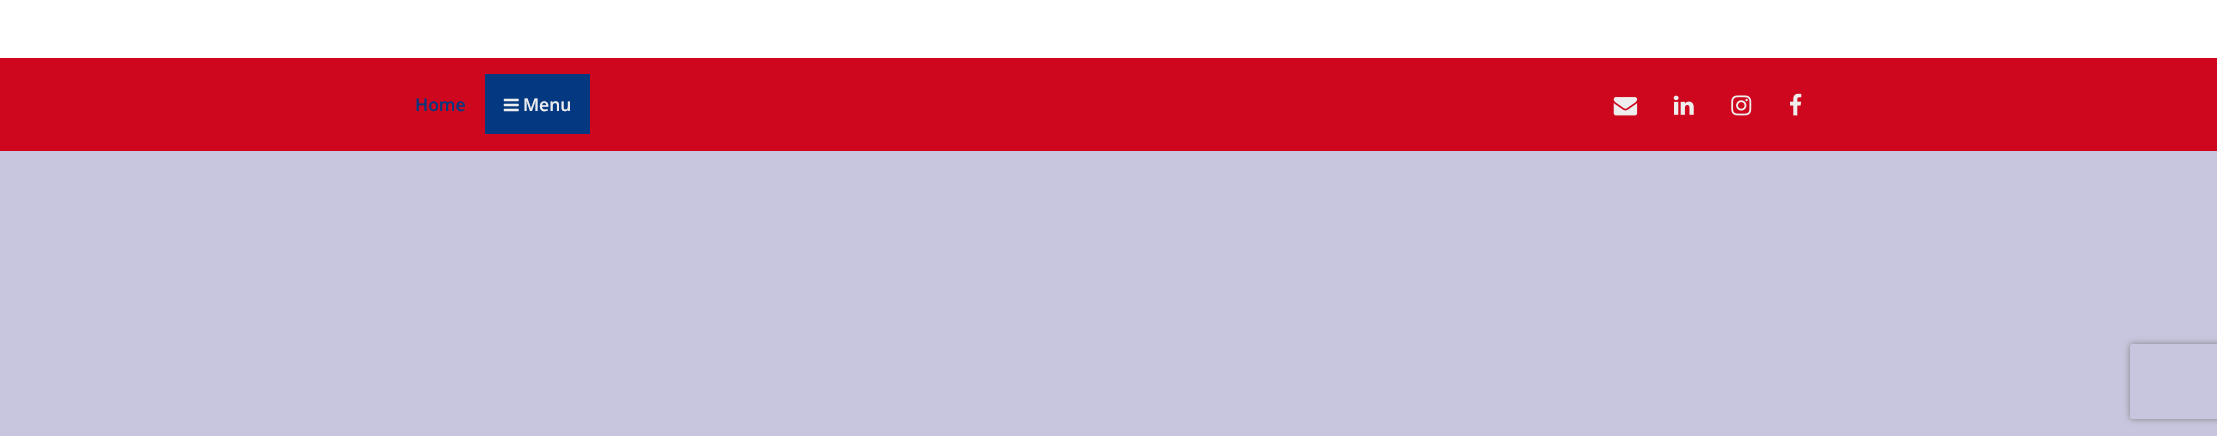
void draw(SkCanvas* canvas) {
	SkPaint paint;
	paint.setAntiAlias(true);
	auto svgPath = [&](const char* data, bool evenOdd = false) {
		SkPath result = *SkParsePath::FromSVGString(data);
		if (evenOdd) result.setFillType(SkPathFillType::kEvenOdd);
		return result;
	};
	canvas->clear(0xffc8c6de);
	paint.setColor(0xffffffff);
	canvas->drawRect(SkRect::MakeXYWH(0, 0, 2217, 58), paint);
	paint.setColor(0xffce071e);
	canvas->drawRect(SkRect::MakeXYWH(0, 58, 2217, 93), paint);
	SkFont f1(fontMgr->matchFamilyStyle("Open Sans", SkFontStyle(600, SkFontStyle::kNormal_Width, SkFontStyle::kUpright_Slant)), 17.5);
	f1.setSubpixel(true);
	paint.setColor(0xff043881);
	canvas->drawString("Home", 415, 111, f1, paint);
	canvas->drawRect(SkRect::MakeXYWH(485, 74, 105, 60), paint);
	canvas->drawImageRect(SkImages::DeferredFromEncodedData(SkData::MakeFromFileName("img1.png")), SkRect::MakeXYWH(503, 98, 16, 14), SkSamplingOptions());
	paint.setColor(0xffeeeeee);
	canvas->drawString("Menu", 523, 111, f1, paint);
	canvas->drawImageRect(SkImages::DeferredFromEncodedData(SkData::MakeFromFileName("img2.png")), SkRect::MakeXYWH(1613, 97, 25, 19), SkSamplingOptions());
	canvas->drawImageRect(SkImages::DeferredFromEncodedData(SkData::MakeFromFileName("img3.png")), SkRect::MakeXYWH(1673, 95, 21, 20), SkSamplingOptions());
	canvas->drawImageRect(SkImages::DeferredFromEncodedData(SkData::MakeFromFileName("img4.png")), SkRect::MakeXYWH(1731, 95, 21, 21), SkSamplingOptions());
	canvas->drawImageRect(SkImages::DeferredFromEncodedData(SkData::MakeFromFileName("img5.png")), SkRect::MakeXYWH(1790, 93, 12, 23), SkSamplingOptions());
	canvas->save();
	canvas->clipPath(svgPath("M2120 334H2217V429H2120ZM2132.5 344H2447.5C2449 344 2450 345 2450 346.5V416.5C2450 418 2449 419 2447.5 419H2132.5C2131 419 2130 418 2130 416.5V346.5C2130 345 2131 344 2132.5 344Z", true), true);
	paint.setColor(0xff808080);
	paint.setMaskFilter(SkMaskFilter::MakeBlur(kNormal_SkBlurStyle, 3));
	canvas->drawRoundRect(SkRect::MakeXYWH(2130, 344, 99, 75), 2.5, 2.5, paint);
	paint.setMaskFilter(nullptr);
	canvas->restore();
}
